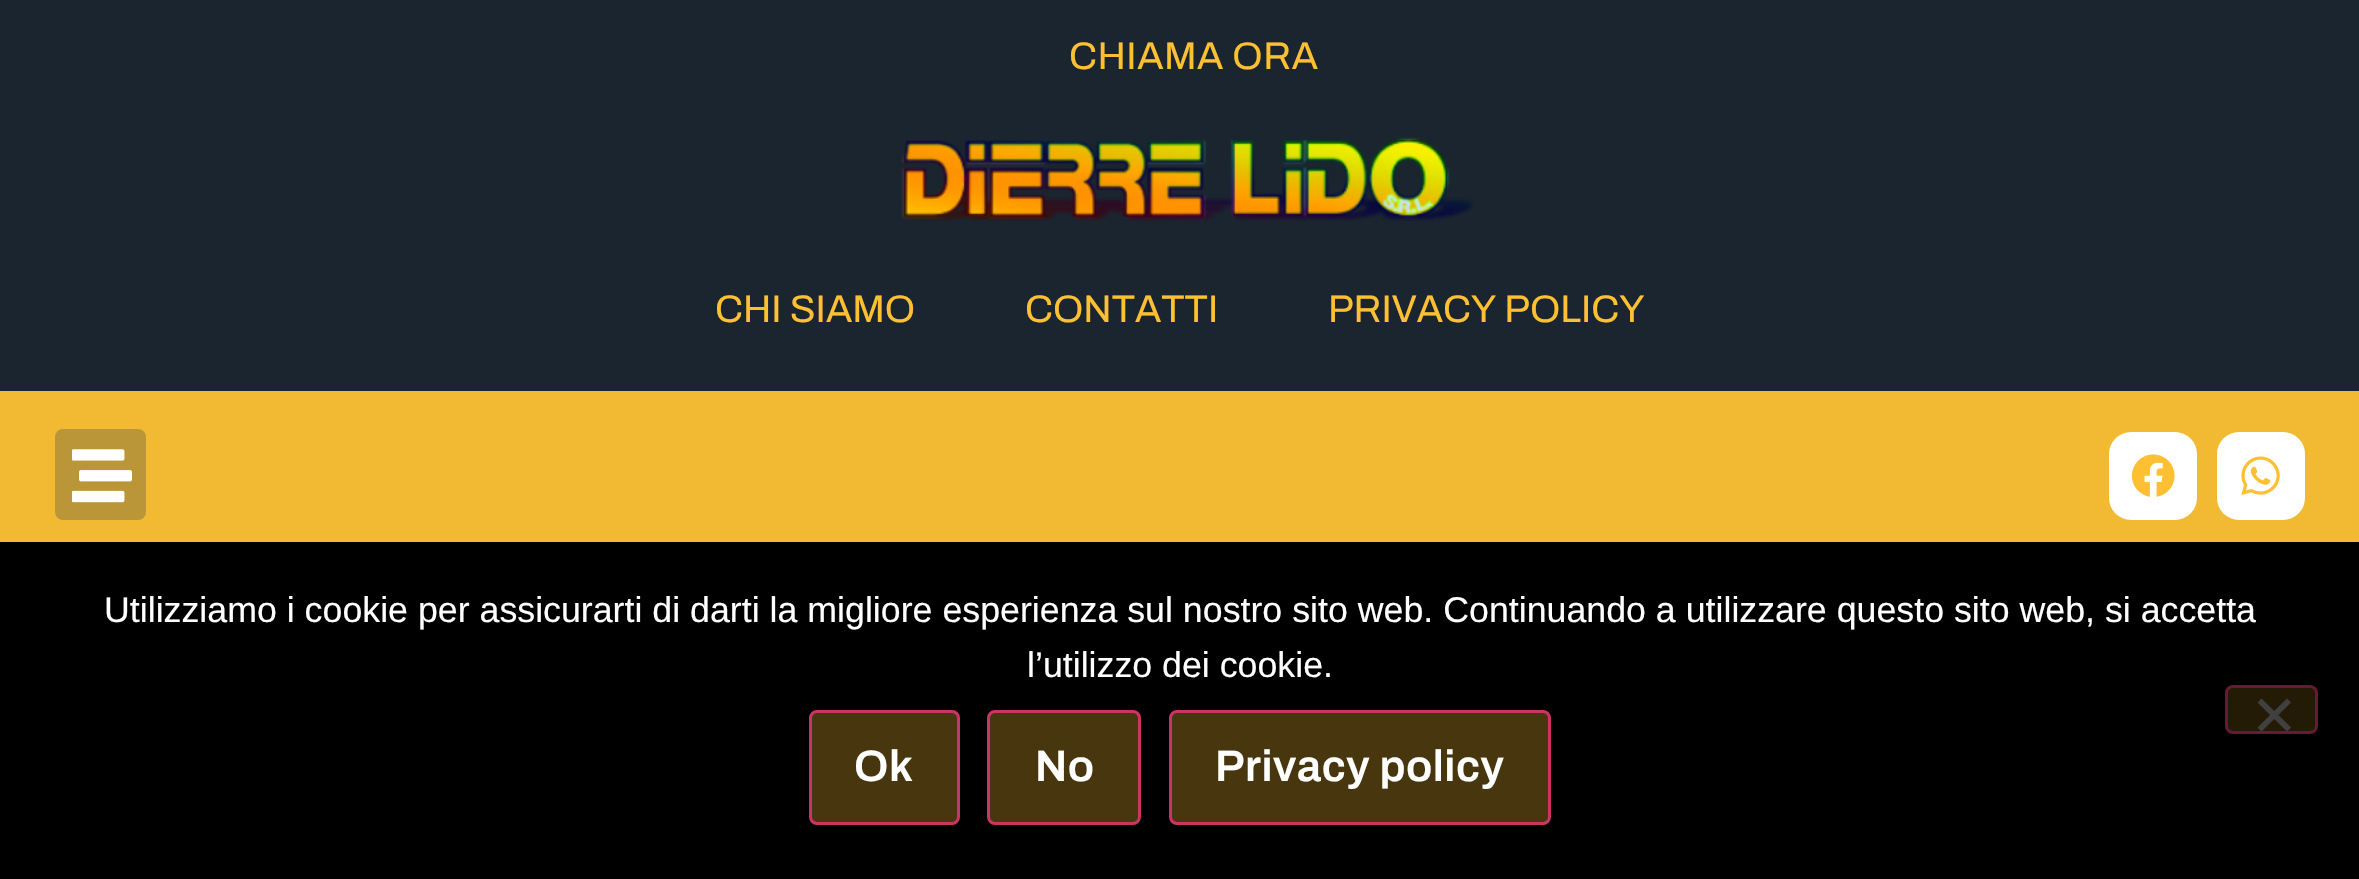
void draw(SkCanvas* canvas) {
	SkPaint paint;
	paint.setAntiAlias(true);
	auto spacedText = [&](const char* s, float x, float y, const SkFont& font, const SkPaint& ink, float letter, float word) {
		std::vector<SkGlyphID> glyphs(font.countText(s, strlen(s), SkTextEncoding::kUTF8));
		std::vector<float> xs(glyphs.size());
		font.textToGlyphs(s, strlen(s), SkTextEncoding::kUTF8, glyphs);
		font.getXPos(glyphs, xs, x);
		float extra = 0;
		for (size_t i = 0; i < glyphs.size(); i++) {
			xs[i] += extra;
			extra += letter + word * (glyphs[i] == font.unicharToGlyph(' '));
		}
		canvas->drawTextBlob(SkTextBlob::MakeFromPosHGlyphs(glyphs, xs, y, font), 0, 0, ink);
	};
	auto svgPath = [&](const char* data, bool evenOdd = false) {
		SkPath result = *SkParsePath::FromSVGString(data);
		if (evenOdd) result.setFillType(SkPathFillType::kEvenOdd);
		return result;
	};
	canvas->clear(0xff1b252f);
	SkFont f1(fontMgr->matchFamilyStyle("Archivo", SkFontStyle::Normal()), 38.5);
	f1.setSubpixel(true);
	paint.setColor(0xfffdc032);
	spacedText("CHIAMA ORA", 1069, 69, f1, paint, 0.5, 0);
	canvas->drawImageRect(SkImages::DeferredFromEncodedData(SkData::MakeFromFileName("img1.png")), SkRect::MakeXYWH(901, 137, 573, 84), SkSamplingOptions());
	canvas->drawString("CHI SIAMO", 715, 322, f1, paint);
	canvas->drawString("CONTATTI", 1025, 322, f1, paint);
	canvas->drawString("PRIVACY POLICY", 1328, 322, f1, paint);
	paint.setColor(0xfff2b933);
	canvas->drawRect(SkRect::MakeXYWH(0, 391, 2359, 151), paint);
	paint.setColor(0xffbb9638);
	canvas->drawRoundRect(SkRect::MakeXYWH(55, 429, 91, 91), 8, 8, paint);
	canvas->drawImageRect(SkImages::DeferredFromEncodedData(SkData::MakeFromFileName("img2.png")), SkRect::MakeXYWH(72, 449, 60, 54), SkSamplingOptions());
	paint.setColor(0xffffffff);
	canvas->drawRoundRect(SkRect::MakeXYWH(2109, 432, 88, 88), 22, 22, paint);
	canvas->drawImageRect(SkImages::DeferredFromEncodedData(SkData::MakeFromFileName("img3.png")), SkRect::MakeXYWH(2131, 454, 44, 43), SkSamplingOptions());
	canvas->drawRoundRect(SkRect::MakeXYWH(2217, 432, 88, 88), 22, 22, paint);
	canvas->drawImageRect(SkImages::DeferredFromEncodedData(SkData::MakeFromFileName("img4.png")), SkRect::MakeXYWH(2241, 456, 39, 39), SkSamplingOptions());
	paint.setColor(0xff000000);
	canvas->drawRect(SkRect::MakeXYWH(0, 542, 2359, 337), paint);
	SkFont f2(fontMgr->matchFamilyStyle("Liberation Sans", SkFontStyle::Normal()), 35.75);
	f2.setSubpixel(true);
	paint.setColor(0xffffffff);
	canvas->drawString("Utilizziamo i cookie per assicurarti di darti la migliore esperienza sul nostro sito web. Continuando a utilizzare questo sito web, si accetta", 104, 622, f2, paint);
	canvas->drawString("l’utilizzo dei cookie.", 1027, 677, f2, paint);
	paint.setColor(0xff241b07);
	canvas->drawRoundRect(SkRect::MakeXYWH(2226.5, 686.5, 90, 46), 6.5, 6.5, paint);
	paint.setStroke(true);
	paint.setStrokeWidth(3);
	paint.setColor(0xff661a33);
	canvas->drawRoundRect(SkRect::MakeXYWH(2226.5, 686.5, 90, 46), 6.5, 6.5, paint);
	paint.setStroke(false);
	paint.setColor(0xff404040);
	canvas->drawPath(svgPath("M2287 698.5L2291 702.5L2261.5 731.5L2257.5 727.5Z"), paint);
	canvas->drawPath(svgPath("M2257.5 702.5L2261.5 698.5L2291 727.5L2287 731.5Z"), paint);
	paint.setColor(0xff47360e);
	canvas->drawRoundRect(SkRect::MakeXYWH(810.5, 711.5, 148, 112), 6.5, 6.5, paint);
	paint.setStroke(true);
	paint.setColor(0xffcc3366);
	canvas->drawRoundRect(SkRect::MakeXYWH(810.5, 711.5, 148, 112), 6.5, 6.5, paint);
	SkFont f3(fontMgr->matchFamilyStyle("Archivo", SkFontStyle(600, SkFontStyle::kNormal_Width, SkFontStyle::kUpright_Slant)), 44);
	f3.setSubpixel(true);
	paint.setStroke(false);
	paint.setColor(0xffffffff);
	spacedText("Ok", 854, 781, f3, paint, 0.5, 0);
	paint.setColor(0xff47360e);
	canvas->drawRoundRect(SkRect::MakeXYWH(988.5, 711.5, 151, 112), 6.5, 6.5, paint);
	paint.setStroke(true);
	paint.setColor(0xffcc3366);
	canvas->drawRoundRect(SkRect::MakeXYWH(988.5, 711.5, 151, 112), 6.5, 6.5, paint);
	paint.setStroke(false);
	paint.setColor(0xffffffff);
	spacedText("No", 1035, 781, f3, paint, 0.5, 0);
	paint.setColor(0xff47360e);
	canvas->drawRoundRect(SkRect::MakeXYWH(1170.5, 711.5, 379, 112), 6.5, 6.5, paint);
	paint.setStroke(true);
	paint.setColor(0xffcc3366);
	canvas->drawRoundRect(SkRect::MakeXYWH(1170.5, 711.5, 379, 112), 6.5, 6.5, paint);
	paint.setStroke(false);
	paint.setColor(0xffffffff);
	spacedText("Privacy policy", 1215, 781, f3, paint, 0.5, 0);
}
